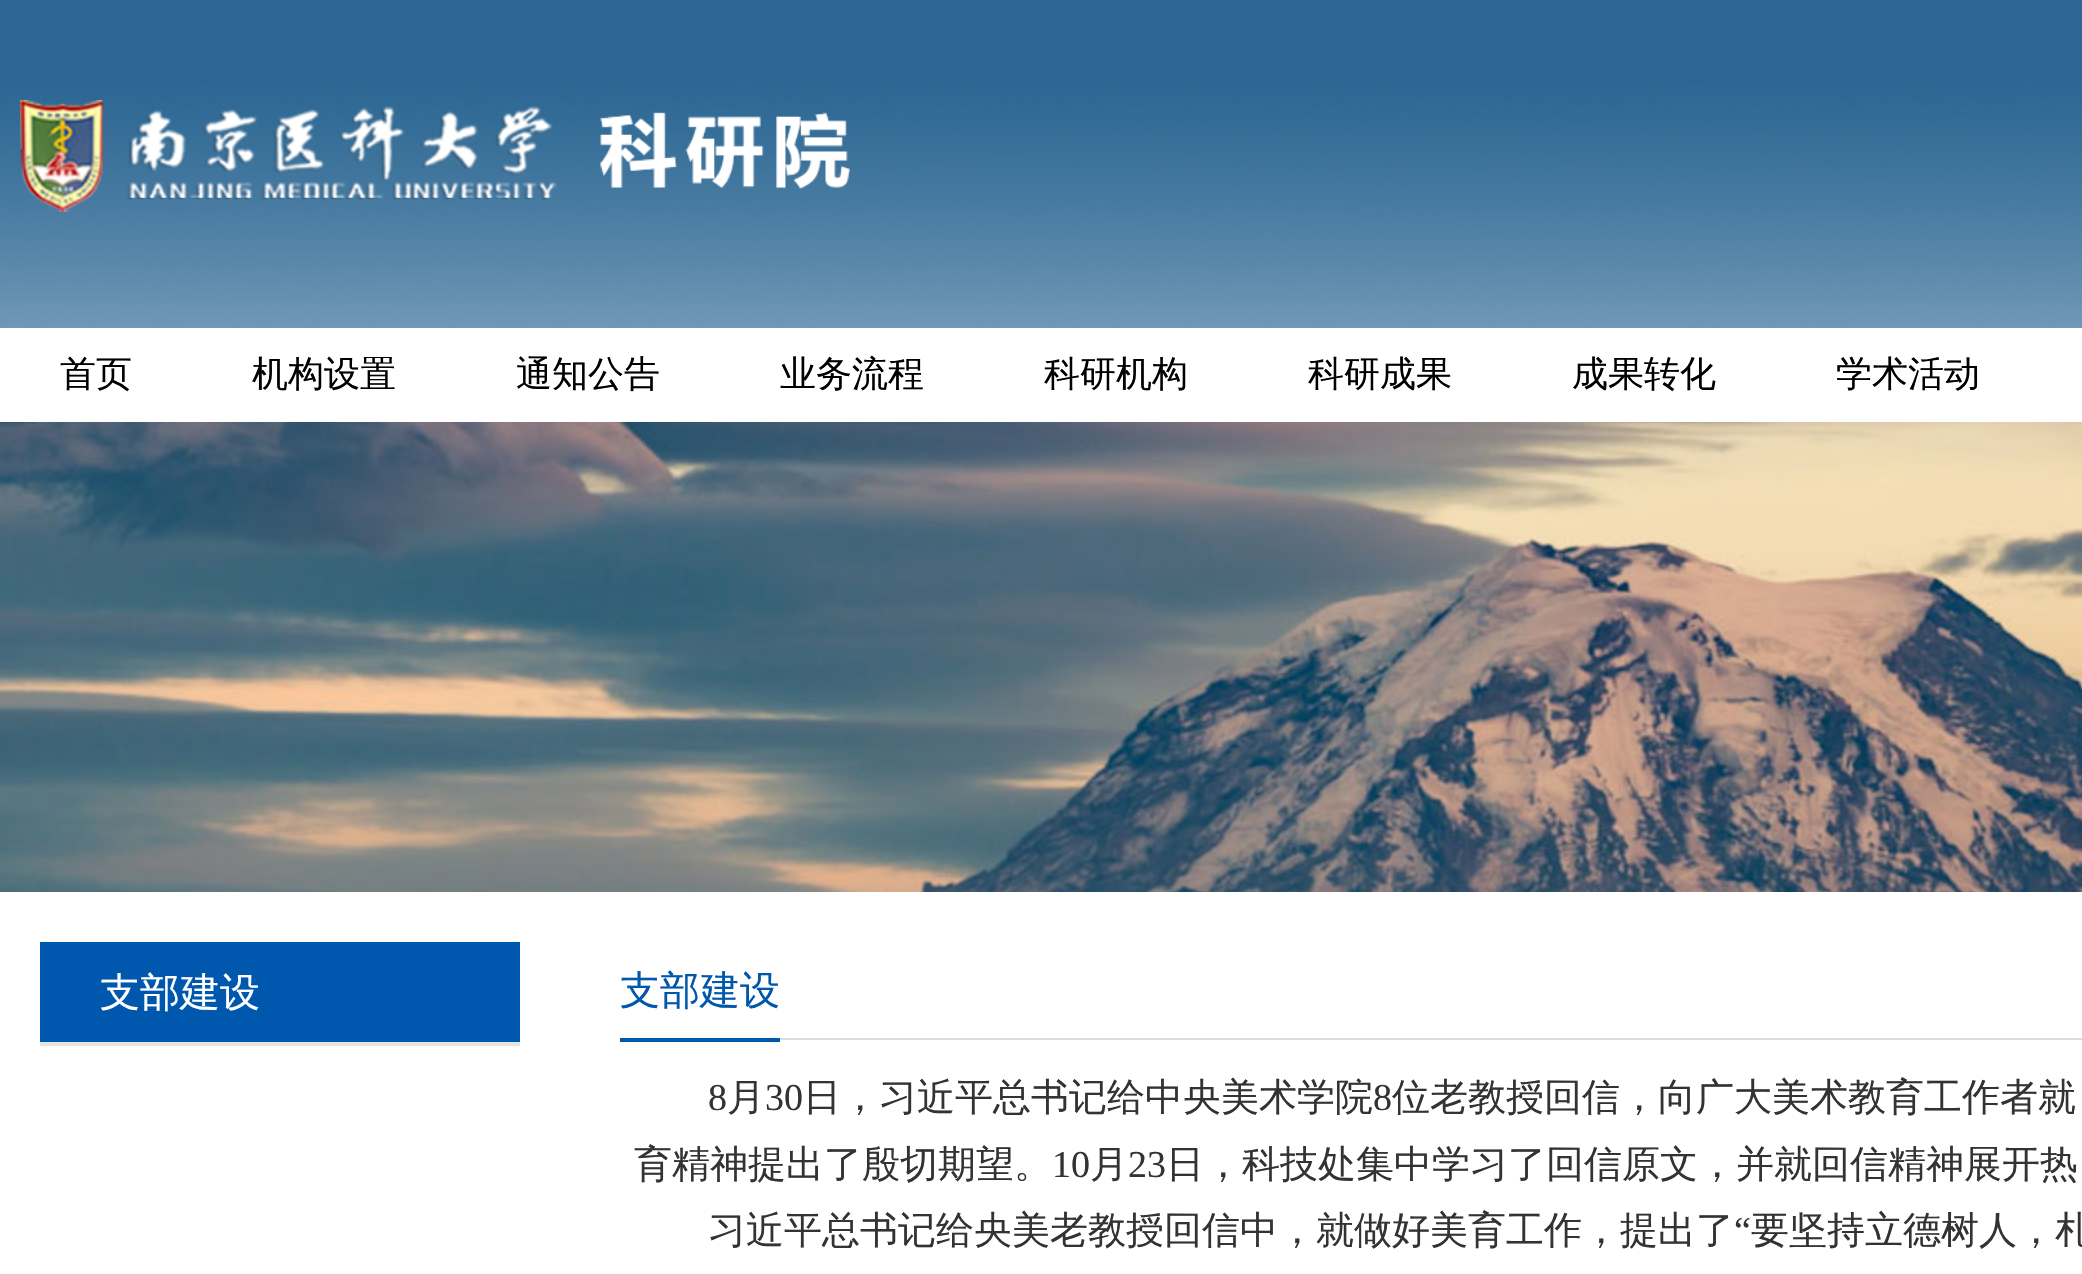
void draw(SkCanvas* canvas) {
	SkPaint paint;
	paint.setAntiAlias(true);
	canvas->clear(0xffffffff);
	canvas->drawImageRect(SkImages::DeferredFromEncodedData(SkData::MakeFromFileName("img1.png")), SkRect::MakeXYWH(0, 0, 2082, 328), SkSamplingOptions());
	canvas->drawImageRect(SkImages::DeferredFromEncodedData(SkData::MakeFromFileName("img2.png")), SkRect::MakeXYWH(20, 100, 830, 112), SkSamplingOptions());
	SkFont f1(fontMgr->matchFamilyStyle("WenQuanYi Zen Hei", SkFontStyle(500, SkFontStyle::kNormal_Width, SkFontStyle::kUpright_Slant)), 36);
	f1.setSubpixel(true);
	paint.setColor(0xff000000);
	canvas->drawString("首页", 60, 386, f1, paint);
	canvas->drawString("机构设置", 252, 386, f1, paint);
	canvas->drawString("通知公告", 516, 386, f1, paint);
	canvas->drawString("业务流程", 780, 386, f1, paint);
	canvas->drawString("科研机构", 1044, 386, f1, paint);
	canvas->drawString("科研成果", 1308, 386, f1, paint);
	canvas->drawString("成果转化", 1572, 386, f1, paint);
	canvas->drawString("学术活动", 1836, 386, f1, paint);
	canvas->drawImageRect(SkImages::DeferredFromEncodedData(SkData::MakeFromFileName("img3.png")), SkRect::MakeXYWH(0, 422, 2082, 470), SkSamplingOptions());
	paint.setColor(0xff0057ae);
	canvas->drawRect(SkRect::MakeXYWH(40, 942, 480, 100), paint);
	SkFont f2(fontMgr->matchFamilyStyle("WenQuanYi Zen Hei", SkFontStyle(500, SkFontStyle::kNormal_Width, SkFontStyle::kUpright_Slant)), 40);
	f2.setSubpixel(true);
	paint.setColor(0xffffffff);
	canvas->drawString("支部建设", 100, 1006, f2, paint);
	paint.setColor(0xffe4e4e4);
	canvas->drawRect(SkRect::MakeXYWH(40, 1042, 480, 4), paint);
	paint.setColor(0xffdbdbdb);
	canvas->drawRect(SkRect::MakeXYWH(780, 1038, 1302, 2), paint);
	paint.setColor(0xff0057ae);
	canvas->drawRect(SkRect::MakeXYWH(620, 1038, 160, 4), paint);
	canvas->drawString("支部建设", 620, 1004, f2, paint);
	SkFont f3(fontMgr->matchFamilyStyle("Liberation Serif", SkFontStyle::Normal()), 38);
	f3.setSubpixel(true);
	paint.setColor(0xff333333);
	canvas->drawString("8", 708, 1110, f3, paint);
	SkFont f4(fontMgr->matchFamilyStyle("WenQuanYi Zen Hei", SkFontStyle(500, SkFontStyle::kNormal_Width, SkFontStyle::kUpright_Slant)), 38);
	f4.setSubpixel(true);
	canvas->drawString("月", 727, 1110, f4, paint);
	canvas->drawString("30", 765, 1110, f3, paint);
	canvas->drawString("日，习近平总书记给中央美术学院", 803, 1110, f4, paint);
	canvas->drawString("8", 1373, 1110, f3, paint);
	canvas->drawString("位老教授回信，向广大美术教育工作者就", 1392, 1110, f4, paint);
	canvas->drawString("育精神提出了殷切期望。", 634, 1177, f4, paint);
	canvas->drawString("10", 1052, 1177, f3, paint);
	canvas->drawString("月", 1090, 1177, f4, paint);
	canvas->drawString("23", 1128, 1177, f3, paint);
	canvas->drawString("日，科技处集中学习了回信原文，并就回信精神展开热", 1166, 1177, f4, paint);
	canvas->drawString("习近平总书记给央美老教授回信中，就做好美育工作，提出了", 708, 1243, f4, paint);
	canvas->drawString("“", 1734, 1243, f3, paint);
	canvas->drawString("要坚持立德树人，札", 1751, 1243, f4, paint);
}
